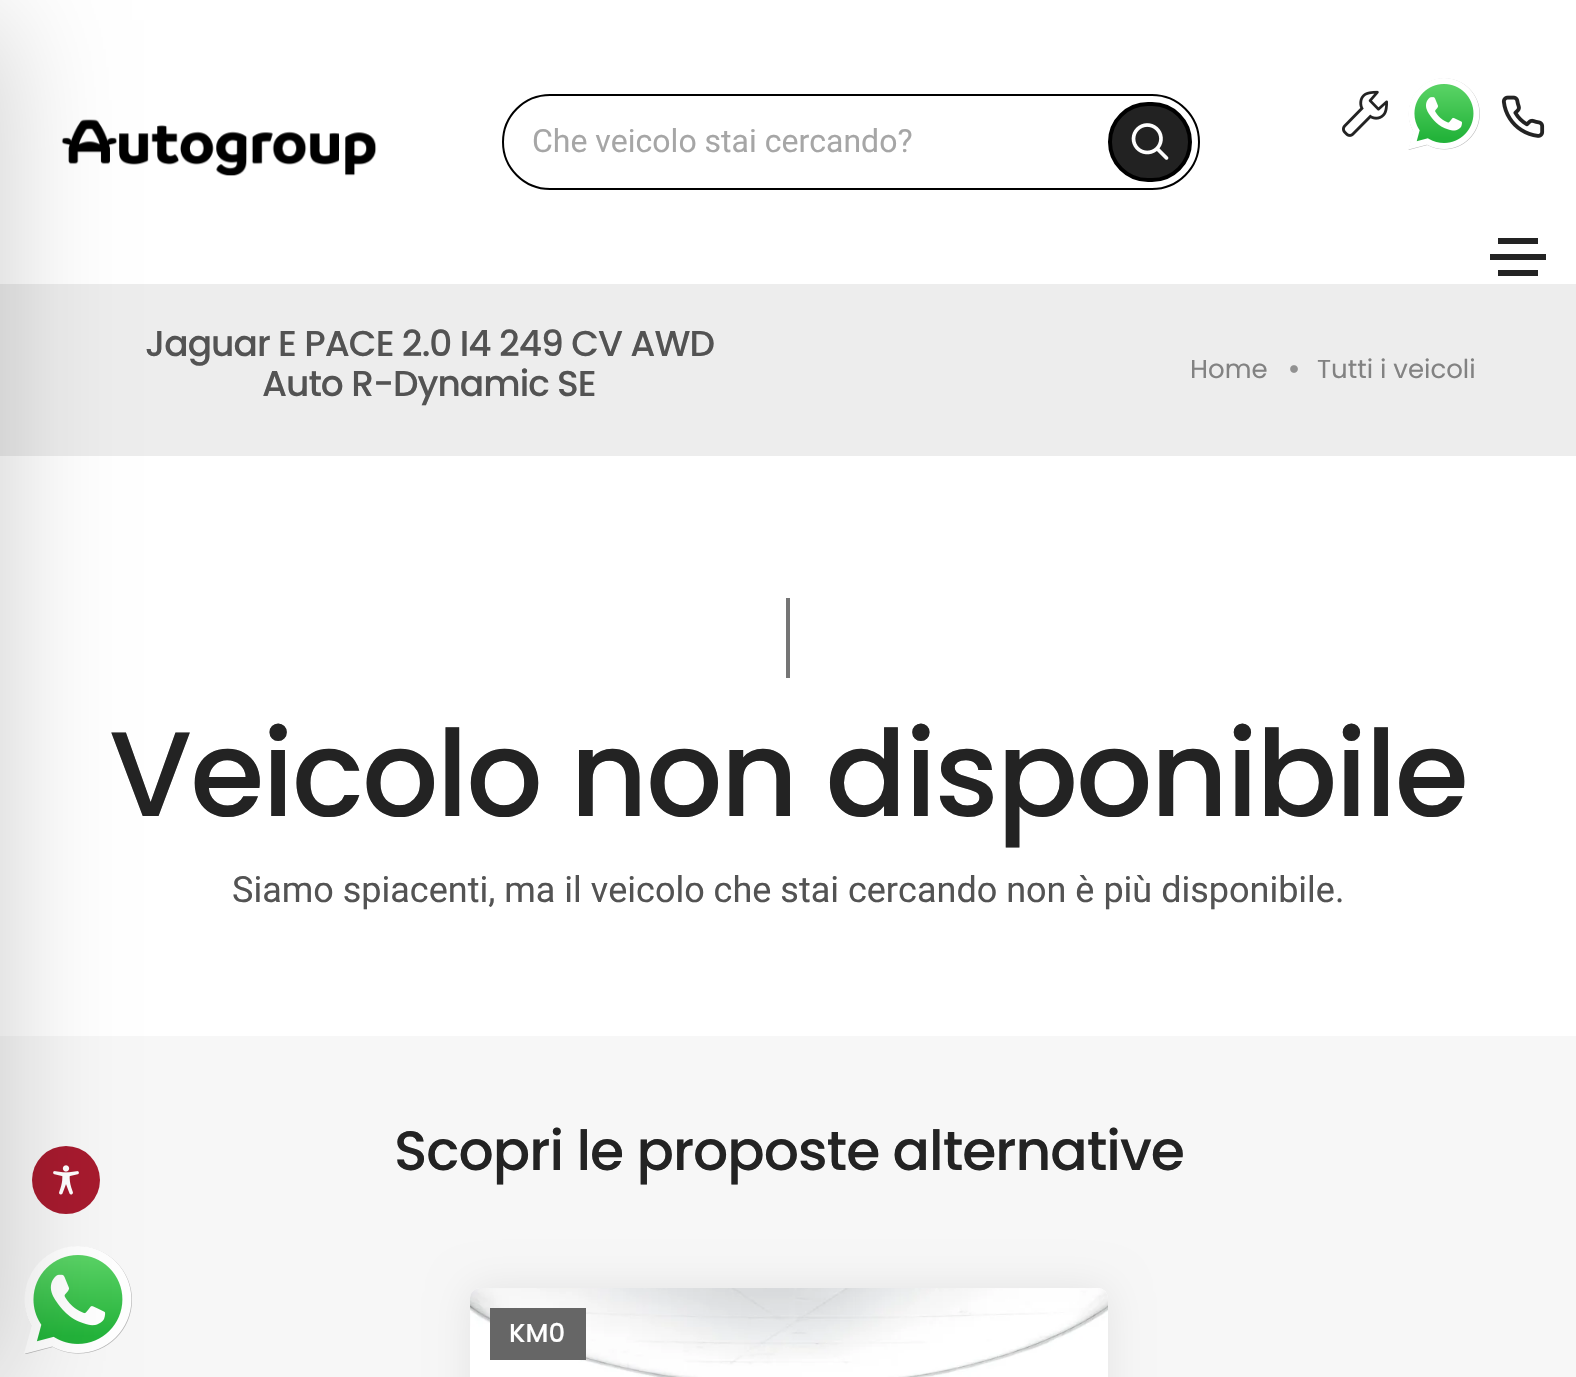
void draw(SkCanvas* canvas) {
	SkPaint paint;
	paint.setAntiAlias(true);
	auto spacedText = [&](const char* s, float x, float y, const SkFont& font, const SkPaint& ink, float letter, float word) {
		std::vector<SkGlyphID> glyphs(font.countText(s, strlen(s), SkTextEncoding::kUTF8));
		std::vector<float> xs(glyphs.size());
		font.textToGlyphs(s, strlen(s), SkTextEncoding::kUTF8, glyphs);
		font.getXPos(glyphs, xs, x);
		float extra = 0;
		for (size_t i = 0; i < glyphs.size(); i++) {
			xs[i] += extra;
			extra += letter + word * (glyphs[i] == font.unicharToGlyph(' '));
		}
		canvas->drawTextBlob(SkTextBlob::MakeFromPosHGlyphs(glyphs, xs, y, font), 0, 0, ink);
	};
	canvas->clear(0xffffffff);
	canvas->drawImageRect(SkImages::DeferredFromEncodedData(SkData::MakeFromFileName("img1.png")), SkRect::MakeXYWH(61, 119, 316, 57), SkSamplingOptions());
	paint.setColor(0xfff7f7f7);
	canvas->drawRect(SkRect::MakeXYWH(0, 1036, 1576, 341), paint);
	paint.setColor(0xffa71a2e);
	canvas->drawCircle(66, 1180, 34, paint);
	canvas->drawImageRect(SkImages::DeferredFromEncodedData(SkData::MakeFromFileName("img6.png")), SkRect::MakeXYWH(53, 1165, 26, 30), SkSamplingOptions());
	paint.setColor(0xffededed);
	canvas->drawRect(SkRect::MakeXYWH(0, 284, 1576, 172), paint);
	canvas->drawImageRect(SkImages::DeferredFromEncodedData(SkData::MakeFromFileName("img9.png")), SkRect::MakeXYWH(24, 1246, 108, 108), SkSamplingOptions());
	paint.setColor(0x33000000);
	paint.setMaskFilter(SkMaskFilter::MakeBlur(kNormal_SkBlurStyle, 60));
	canvas->drawRect(SkRect::MakeXYWH(-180, 20, 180, 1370), paint);
	paint.setMaskFilter(nullptr);
	paint.setStroke(true);
	paint.setStrokeWidth(2);
	paint.setColor(0xff000000);
	canvas->drawRoundRect(SkRect::MakeXYWH(503, 95, 696, 94), 47, 47, paint);
	SkFont f1(fontMgr->matchFamilyStyle("Roboto", SkFontStyle::Normal()), 32);
	f1.setSubpixel(true);
	paint.setStroke(false);
	paint.setColor(0xffa6a6a6);
	canvas->drawString("Che veicolo stai cercando?", 532, 152, f1, paint);
	paint.setColor(0xff222222);
	canvas->drawRoundRect(SkRect::MakeXYWH(1110, 104, 80, 76), 38, 38, paint);
	paint.setStroke(true);
	paint.setStrokeWidth(4);
	paint.setColor(0xff000000);
	canvas->drawRoundRect(SkRect::MakeXYWH(1110, 104, 80, 76), 38, 38, paint);
	canvas->drawImageRect(SkImages::DeferredFromEncodedData(SkData::MakeFromFileName("img2.png")), SkRect::MakeXYWH(1131, 123, 38, 37), SkSamplingOptions());
	canvas->drawImageRect(SkImages::DeferredFromEncodedData(SkData::MakeFromFileName("img3.png")), SkRect::MakeXYWH(1342, 90, 46, 47), SkSamplingOptions());
	canvas->drawImageRect(SkImages::DeferredFromEncodedData(SkData::MakeFromFileName("img4.png")), SkRect::MakeXYWH(1408, 78, 72, 72), SkSamplingOptions());
	canvas->drawImageRect(SkImages::DeferredFromEncodedData(SkData::MakeFromFileName("img5.png")), SkRect::MakeXYWH(1501, 95, 44, 43), SkSamplingOptions());
	paint.setStroke(false);
	paint.setColor(0xff232323);
	canvas->drawRect(SkRect::MakeXYWH(1498, 238, 40, 6), paint);
	canvas->drawRect(SkRect::MakeXYWH(1490, 254, 56, 6), paint);
	canvas->drawRect(SkRect::MakeXYWH(1498, 270, 40, 6), paint);
	SkFont f2(fontMgr->matchFamilyStyle("Poppins", SkFontStyle(500, SkFontStyle::kNormal_Width, SkFontStyle::kUpright_Slant)), 36);
	f2.setSubpixel(true);
	paint.setColor(0xff535353);
	spacedText("Jaguar E PACE 2.0 I4 249 CV AWD", 145, 356, f2, paint, -1, 0);
	spacedText("Auto R-Dynamic SE", 262, 396, f2, paint, -1, 0);
	SkFont f3(fontMgr->matchFamilyStyle("Poppins", SkFontStyle::Normal()), 26);
	f3.setSubpixel(true);
	paint.setColor(0xff828282);
	canvas->drawString("Home", 1190, 378, f3, paint);
	canvas->drawImageRect(SkImages::DeferredFromEncodedData(SkData::MakeFromFileName("img7.png")), SkRect::MakeXYWH(1290, 365, 8, 8), SkSamplingOptions());
	canvas->drawString("Tutti i veicoli", 1317, 378, f3, paint);
	paint.setColor(0xff757575);
	canvas->drawRect(SkRect::MakeXYWH(786, 598, 4, 80), paint);
	SkFont f4(fontMgr->matchFamilyStyle("Poppins", SkFontStyle(500, SkFontStyle::kNormal_Width, SkFontStyle::kUpright_Slant)), 120);
	f4.setSubpixel(true);
	paint.setColor(0xff232323);
	spacedText("Veicolo non disponibile", 109, 816, f4, paint, -2, 0);
	SkFont f5(fontMgr->matchFamilyStyle("Roboto", SkFontStyle::Normal()), 36);
	f5.setSubpixel(true);
	paint.setColor(0xff535353);
	canvas->drawString("Siamo spiacenti, ma il veicolo che stai cercando non è più disponibile.", 232, 902, f5, paint);
	SkFont f6(fontMgr->matchFamilyStyle("Poppins", SkFontStyle(500, SkFontStyle::kNormal_Width, SkFontStyle::kUpright_Slant)), 55.25);
	f6.setSubpixel(true);
	paint.setColor(0xff232323);
	spacedText("Scopri le proposte alternative", 394, 1170, f6, paint, -1, 0);
	paint.setColor(0x14000000);
	paint.setMaskFilter(SkMaskFilter::MakeBlur(kNormal_SkBlurStyle, 20));
	canvas->drawRoundRect(SkRect::MakeXYWH(470, 1288, 638, 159), 10, 10, paint);
	paint.setMaskFilter(nullptr);
	paint.setColor(0xffffffff);
	canvas->drawRoundRect(SkRect::MakeXYWH(470, 1288, 638, 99), 10, 10, paint);
	canvas->drawImageRect(SkImages::DeferredFromEncodedData(SkData::MakeFromFileName("img8.png")), SkRect::MakeXYWH(470, 1288, 638, 89), SkSamplingOptions());
	paint.setColor(0xff666666);
	canvas->drawRect(SkRect::MakeXYWH(490, 1308, 96, 52), paint);
	SkFont f7(fontMgr->matchFamilyStyle("Poppins", SkFontStyle(500, SkFontStyle::kNormal_Width, SkFontStyle::kUpright_Slant)), 26);
	f7.setSubpixel(true);
	paint.setColor(0xffffffff);
	canvas->drawString("KM0", 509, 1342, f7, paint);
}
